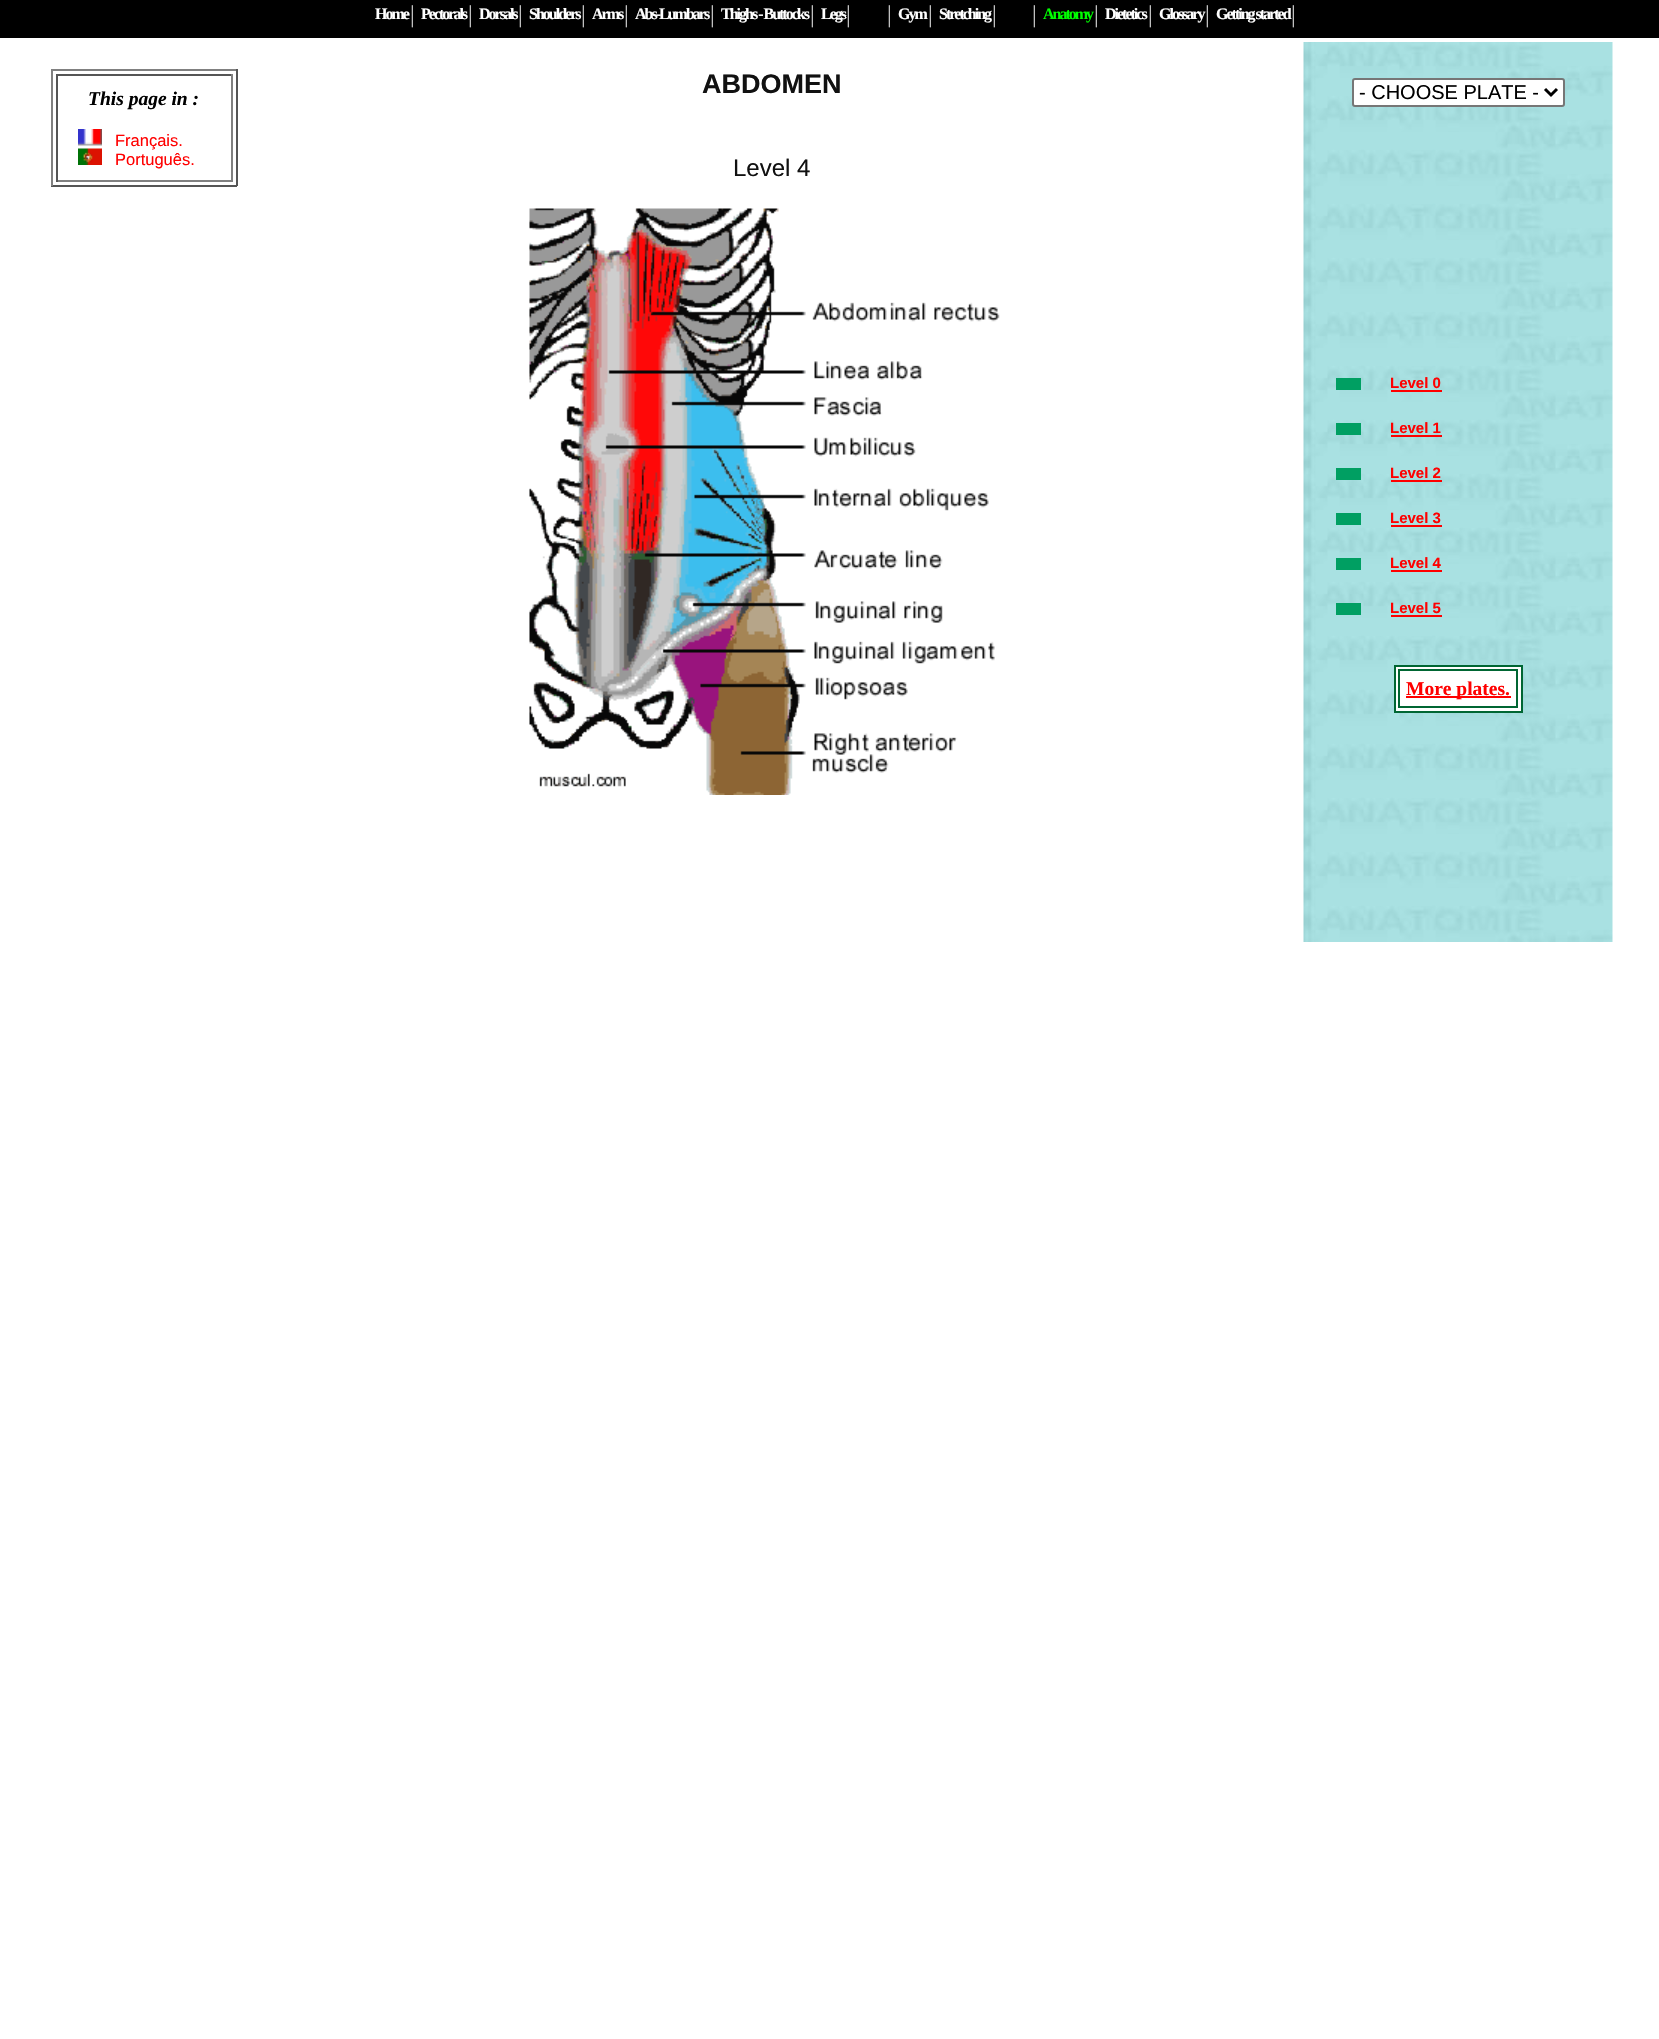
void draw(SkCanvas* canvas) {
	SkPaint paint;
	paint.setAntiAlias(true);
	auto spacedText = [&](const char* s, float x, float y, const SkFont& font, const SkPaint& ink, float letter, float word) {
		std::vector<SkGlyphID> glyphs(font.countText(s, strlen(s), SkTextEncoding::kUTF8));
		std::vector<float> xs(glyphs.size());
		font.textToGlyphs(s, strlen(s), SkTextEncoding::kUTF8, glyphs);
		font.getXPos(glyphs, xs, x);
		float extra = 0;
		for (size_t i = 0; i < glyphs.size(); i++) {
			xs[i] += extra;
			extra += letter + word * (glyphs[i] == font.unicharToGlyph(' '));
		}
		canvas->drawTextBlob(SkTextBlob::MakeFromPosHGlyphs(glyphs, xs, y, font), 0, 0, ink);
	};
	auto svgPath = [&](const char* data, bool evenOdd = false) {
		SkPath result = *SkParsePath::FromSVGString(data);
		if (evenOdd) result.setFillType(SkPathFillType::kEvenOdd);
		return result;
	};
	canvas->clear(0xffffffff);
	paint.setColor(0xff000000);
	canvas->drawRect(SkRect::MakeXYWH(0, 0, 1659, 38), paint);
	SkFont f1(fontMgr->matchFamilyStyle("Liberation Serif", SkFontStyle::Bold()), 16);
	f1.setSubpixel(true);
	paint.setColor(0xffffffff);
	spacedText("Home", 375, 19, f1, paint, -2, 0);
	SkFont f2(fontMgr->matchFamilyStyle("Liberation Serif", SkFontStyle::Normal()), 24);
	f2.setSubpixel(true);
	paint.setColor(0xffc0c0c0);
	canvas->drawString("|", 410, 22, f2, paint);
	paint.setColor(0xffffffff);
	spacedText("Pectorals", 421, 19, f1, paint, -2, 0);
	paint.setColor(0xffc0c0c0);
	canvas->drawString("|", 468, 22, f2, paint);
	paint.setColor(0xffffffff);
	spacedText("Dorsals", 479, 19, f1, paint, -2, 0);
	paint.setColor(0xffc0c0c0);
	canvas->drawString("|", 518, 22, f2, paint);
	paint.setColor(0xffffffff);
	spacedText("Shoulders", 529, 19, f1, paint, -2, 0);
	paint.setColor(0xffc0c0c0);
	canvas->drawString("|", 581, 22, f2, paint);
	paint.setColor(0xffffffff);
	spacedText("Arms", 592, 19, f1, paint, -2, 0);
	paint.setColor(0xffc0c0c0);
	canvas->drawString("|", 624, 22, f2, paint);
	paint.setColor(0xffffffff);
	spacedText("Abs-Lumbars", 635, 19, f1, paint, -2, 0);
	paint.setColor(0xffc0c0c0);
	canvas->drawString("|", 710, 22, f2, paint);
	paint.setColor(0xffffffff);
	spacedText("Thighs - Buttocks", 721, 19, f1, paint, -2, 0);
	paint.setColor(0xffc0c0c0);
	canvas->drawString("|", 810, 22, f2, paint);
	paint.setColor(0xffffffff);
	spacedText("Legs", 821, 19, f1, paint, -2, 0);
	paint.setColor(0xffc0c0c0);
	canvas->drawString("|", 846, 22, f2, paint);
	paint.setColor(0xff000000);
	canvas->drawRect(SkRect::MakeXYWH(846, 16, 1, 1), paint);
	paint.setColor(0xffc0c0c0);
	canvas->drawString("|", 887, 22, f2, paint);
	paint.setColor(0xffffffff);
	spacedText("Gym", 898, 19, f1, paint, -2, 0);
	paint.setColor(0xffc0c0c0);
	canvas->drawString("|", 928, 22, f2, paint);
	paint.setColor(0xffffffff);
	spacedText("Stretching", 939, 19, f1, paint, -2, 0);
	paint.setColor(0xffc0c0c0);
	canvas->drawString("|", 992, 22, f2, paint);
	canvas->drawString("|", 1032, 22, f2, paint);
	paint.setColor(0xff00ff00);
	spacedText("Anatomy", 1043, 19, f1, paint, -2, 0);
	paint.setColor(0xffc0c0c0);
	canvas->drawString("|", 1094, 22, f2, paint);
	paint.setColor(0xffffffff);
	spacedText("Dietetics", 1105, 19, f1, paint, -2, 0);
	paint.setColor(0xffc0c0c0);
	canvas->drawString("|", 1148, 22, f2, paint);
	paint.setColor(0xffffffff);
	spacedText("Glossary", 1159, 19, f1, paint, -2, 0);
	paint.setColor(0xffc0c0c0);
	canvas->drawString("|", 1205, 22, f2, paint);
	paint.setColor(0xffffffff);
	spacedText("Getting started", 1216, 19, f1, paint, -2, 0);
	paint.setColor(0xffc0c0c0);
	canvas->drawString("|", 1291, 22, f2, paint);
	paint.setColor(0xff808080);
	canvas->drawRect(SkRect::MakeXYWH(51, 69, 186, 2), paint);
	paint.setColor(0xff555555);
	canvas->drawRect(SkRect::MakeXYWH(236, 69, 2, 117), paint);
	canvas->drawRect(SkRect::MakeXYWH(51, 185, 186, 2), paint);
	paint.setColor(0xff808080);
	canvas->drawRect(SkRect::MakeXYWH(51, 69, 2, 117), paint);
	paint.setColor(0xff555555);
	canvas->drawRect(SkRect::MakeXYWH(56, 74, 177, 2), paint);
	paint.setColor(0xff808080);
	canvas->drawRect(SkRect::MakeXYWH(231, 74, 2, 108), paint);
	canvas->drawRect(SkRect::MakeXYWH(56, 180, 177, 2), paint);
	paint.setColor(0xff555555);
	canvas->drawRect(SkRect::MakeXYWH(56, 74, 2, 108), paint);
	SkFont f3(fontMgr->matchFamilyStyle("Liberation Serif", SkFontStyle::BoldItalic()), 19.5);
	f3.setSubpixel(true);
	paint.setColor(0xff000000);
	canvas->drawString("This page in :", 88, 105, f3, paint);
	canvas->drawImageRect(SkImages::DeferredFromEncodedData(SkData::MakeFromFileName("img1.png")), SkRect::MakeXYWH(78, 129, 24, 17), SkSamplingOptions());
	SkFont f4(fontMgr->matchFamilyStyle("Liberation Sans", SkFontStyle::Normal()), 16.5);
	f4.setSubpixel(true);
	paint.setColor(0xffff0000);
	canvas->drawString("Français.", 115, 146, f4, paint);
	canvas->drawImageRect(SkImages::DeferredFromEncodedData(SkData::MakeFromFileName("img2.png")), SkRect::MakeXYWH(78, 148, 24, 17), SkSamplingOptions());
	canvas->drawString("Português.", 115, 165, f4, paint);
	SkFont f5(fontMgr->matchFamilyStyle("Liberation Sans", SkFontStyle::Bold()), 27);
	f5.setSubpixel(true);
	paint.setColor(0xff111111);
	canvas->drawString("ABDOMEN", 702, 93, f5, paint);
	SkFont f6(fontMgr->matchFamilyStyle("Liberation Sans", SkFontStyle::Normal()), 24);
	f6.setSubpixel(true);
	canvas->drawString("Level 4", 733, 176, f6, paint);
	canvas->drawImageRect(SkImages::DeferredFromEncodedData(SkData::MakeFromFileName("img3.png")), SkRect::MakeXYWH(529, 208, 471, 587), SkSamplingOptions());
	canvas->drawImageRect(SkImages::DeferredFromEncodedData(SkData::MakeFromFileName("img4.png")), SkRect::MakeXYWH(1303, 42, 310, 900), SkSamplingOptions());
	paint.setColor(0xffffffff);
	canvas->drawRoundRect(SkRect::MakeXYWH(1353, 79, 211, 27), 2, 2, paint);
	paint.setStroke(true);
	paint.setStrokeWidth(2);
	paint.setColor(0xff767676);
	canvas->drawRoundRect(SkRect::MakeXYWH(1353, 79, 211, 27), 2, 2, paint);
	paint.setStrokeWidth(3);
	paint.setColor(0xff000000);
	canvas->drawPath(svgPath("M1545 89L1551 95L1557 89"), paint);
	SkFont f7(fontMgr->matchFamilyStyle("Liberation Sans", SkFontStyle::Normal()), 20);
	f7.setSubpixel(true);
	paint.setStroke(false);
	canvas->drawString("- CHOOSE PLATE -", 1359, 99, f7, paint);
	paint.setColor(0xff009f62);
	canvas->drawRect(SkRect::MakeXYWH(1336, 378, 25, 12), paint);
	SkFont f8(fontMgr->matchFamilyStyle("Liberation Sans", SkFontStyle::Bold()), 15);
	f8.setSubpixel(true);
	paint.setColor(0xffff0000);
	canvas->drawString("Level 0", 1390, 388, f8, paint);
	canvas->drawRect(SkRect::MakeXYWH(1391, 390, 51, 2), paint);
	paint.setColor(0xff009f62);
	canvas->drawRect(SkRect::MakeXYWH(1336, 423, 25, 12), paint);
	paint.setColor(0xffff0000);
	canvas->drawString("Level 1", 1390, 433, f8, paint);
	canvas->drawRect(SkRect::MakeXYWH(1391, 435, 51, 2), paint);
	paint.setColor(0xff009f62);
	canvas->drawRect(SkRect::MakeXYWH(1336, 468, 25, 12), paint);
	paint.setColor(0xffff0000);
	canvas->drawString("Level 2", 1390, 478, f8, paint);
	canvas->drawRect(SkRect::MakeXYWH(1391, 480, 51, 2), paint);
	paint.setColor(0xff009f62);
	canvas->drawRect(SkRect::MakeXYWH(1336, 513, 25, 12), paint);
	paint.setColor(0xffff0000);
	canvas->drawString("Level 3", 1390, 523, f8, paint);
	canvas->drawRect(SkRect::MakeXYWH(1391, 525, 51, 2), paint);
	paint.setColor(0xff009f62);
	canvas->drawRect(SkRect::MakeXYWH(1336, 558, 25, 12), paint);
	paint.setColor(0xffff0000);
	canvas->drawString("Level 4", 1390, 568, f8, paint);
	canvas->drawRect(SkRect::MakeXYWH(1391, 570, 51, 2), paint);
	paint.setColor(0xff009f62);
	canvas->drawRect(SkRect::MakeXYWH(1336, 603, 25, 12), paint);
	paint.setColor(0xffff0000);
	canvas->drawString("Level 5", 1390, 613, f8, paint);
	canvas->drawRect(SkRect::MakeXYWH(1391, 615, 51, 2), paint);
	paint.setColor(0xffffffff);
	canvas->drawRect(SkRect::MakeXYWH(1395, 666, 127, 46), paint);
	paint.setStroke(true);
	paint.setStrokeWidth(2);
	paint.setColor(0xff006633);
	canvas->drawRect(SkRect::MakeXYWH(1395, 666, 127, 46), paint);
	canvas->drawRect(SkRect::MakeXYWH(1399, 670, 118, 37), paint);
	paint.setStroke(false);
	paint.setColor(0xffff0000);
	canvas->drawRect(SkRect::MakeXYWH(1406, 696, 105, 2), paint);
	SkFont f9(fontMgr->matchFamilyStyle("Liberation Serif", SkFontStyle::Bold()), 19.5);
	f9.setSubpixel(true);
	canvas->drawString("More plates.", 1406, 695, f9, paint);
}
